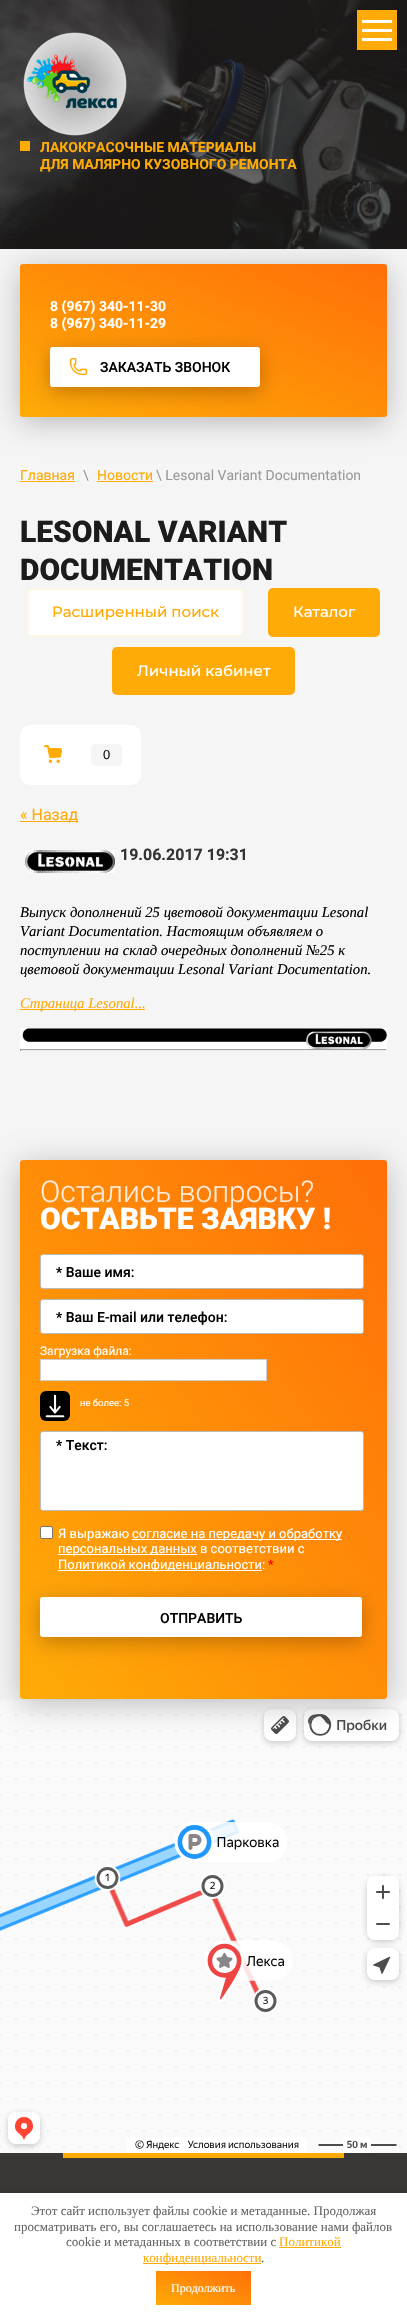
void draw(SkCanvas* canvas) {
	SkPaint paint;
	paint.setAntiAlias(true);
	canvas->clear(0xfff5f5f5);
	canvas->drawImageRect(SkImages::DeferredFromEncodedData(SkData::MakeFromFileName("img1.png")), SkRect::MakeXYWH(0, 0, 407, 249), SkSamplingOptions());
	paint.setColor(0xffffab07);
	canvas->drawRect(SkRect::MakeXYWH(357, 10, 40, 40), paint);
	paint.setColor(0xffffffff);
	canvas->drawRect(SkRect::MakeXYWH(362, 20, 30, 3), paint);
	canvas->drawRect(SkRect::MakeXYWH(362, 29, 30, 3), paint);
	canvas->drawRect(SkRect::MakeXYWH(362, 38, 30, 3), paint);
	canvas->drawImageRect(SkImages::DeferredFromEncodedData(SkData::MakeFromFileName("img2.png")), SkRect::MakeXYWH(23, 32, 104, 104), SkSamplingOptions());
	paint.setColor(0xffffab07);
	canvas->drawRect(SkRect::MakeXYWH(20, 141, 10, 10), paint);
	SkFont f1(fontMgr->matchFamilyStyle("Roboto", SkFontStyle::Bold()), 14);
	f1.setSubpixel(true);
	canvas->drawString("ЛАКОКРАСОЧНЫЕ МАТЕРИАЛЫ", 40, 152, f1, paint);
	canvas->drawString("ДЛЯ МАЛЯРНО КУЗОВНОГО РЕМОНТА", 40, 169, f1, paint);
	paint.setColor(0x40000000);
	paint.setMaskFilter(SkMaskFilter::MakeBlur(kNormal_SkBlurStyle, 15));
	canvas->drawRoundRect(SkRect::MakeXYWH(20, 269, 367, 153), 3, 3, paint);
	paint.setMaskFilter(nullptr);
	{
		const SkColor colors[] = {0xffff6f08, 0xffffab07};
		const float stops[] = {0, 1};
		const SkPoint ends[] = {{258, 210}, {149, 471}};
		paint.setShader(SkGradientShader::MakeLinear(ends, colors, stops, 2, SkTileMode::kClamp));
		paint.setAlpha(255);
	}
	canvas->drawRoundRect(SkRect::MakeXYWH(20, 264, 367, 153), 3, 3, paint);
	paint.setShader(nullptr);
	paint.setColor(0xffffffff);
	canvas->drawString("8 (967) 340-11-30", 50, 311, f1, paint);
	paint.setColor(0x40000000);
	paint.setMaskFilter(SkMaskFilter::MakeBlur(kNormal_SkBlurStyle, 10));
	canvas->drawRoundRect(SkRect::MakeXYWH(50, 352, 210, 40), 3, 3, paint);
	paint.setMaskFilter(nullptr);
	paint.setColor(0xffffffff);
	canvas->drawString("8 (967) 340-11-29", 50, 328, f1, paint);
	canvas->drawRoundRect(SkRect::MakeXYWH(50, 347, 210, 40), 3, 3, paint);
	canvas->drawImageRect(SkImages::DeferredFromEncodedData(SkData::MakeFromFileName("img3.png")), SkRect::MakeXYWH(70, 358, 17, 17), SkSamplingOptions());
	paint.setStroke(true);
	paint.setStrokeWidth(1);
	paint.setColor(0x66ffffff);
	canvas->drawRoundRect(SkRect::MakeXYWH(50.5, 347.5, 209, 39), 2.5, 2.5, paint);
	SkFont f2(fontMgr->matchFamilyStyle("Roboto", SkFontStyle(500, SkFontStyle::kNormal_Width, SkFontStyle::kUpright_Slant)), 14);
	f2.setSubpixel(true);
	paint.setStroke(false);
	paint.setColor(0xff000000);
	canvas->drawString("ЗАКАЗАТЬ ЗВОНОК", 100, 372, f2, paint);
	SkFont f3(fontMgr->matchFamilyStyle("Roboto", SkFontStyle::Normal()), 14);
	f3.setSubpixel(true);
	paint.setColor(0xffffab07);
	canvas->drawString("Главная", 20, 480, f3, paint);
	canvas->drawRect(SkRect::MakeXYWH(20, 481, 55, 1), paint);
	paint.setColor(0xff999999);
	canvas->drawString("\\", 83, 480, f3, paint);
	paint.setColor(0xffffab07);
	canvas->drawString("Новости", 97, 480, f3, paint);
	canvas->drawRect(SkRect::MakeXYWH(97, 481, 56, 1), paint);
	paint.setColor(0xff999999);
	canvas->drawString("\\ Lesonal Variant Documentation", 156, 480, f3, paint);
	SkFont f4(fontMgr->matchFamilyStyle("Roboto", SkFontStyle(900, SkFontStyle::kNormal_Width, SkFontStyle::kUpright_Slant)), 30);
	f4.setSubpixel(true);
	paint.setColor(0xff1c1c1c);
	canvas->drawString("LESONAL VARIANT", 20, 542, f4, paint);
	canvas->drawString("DOCUMENTATION", 20, 580, f4, paint);
	paint.setColor(0xffffffff);
	canvas->drawRoundRect(SkRect::MakeXYWH(27, 588, 217, 49), 5, 5, paint);
	paint.setStroke(true);
	paint.setStrokeWidth(2);
	paint.setColor(0x1affab07);
	canvas->drawRoundRect(SkRect::MakeXYWH(28, 589, 215, 47), 4, 4, paint);
	SkFont f5(fontMgr->matchFamilyStyle("Montserrat", SkFontStyle(500, SkFontStyle::kNormal_Width, SkFontStyle::kUpright_Slant)), 15);
	f5.setSubpixel(true);
	paint.setStroke(false);
	paint.setColor(0xffffab07);
	canvas->drawString("Расширенный поиск", 52, 617, f5, paint);
	canvas->drawRoundRect(SkRect::MakeXYWH(268, 588, 112, 49), 5, 5, paint);
	paint.setColor(0xffffffff);
	canvas->drawString("Каталог", 293, 617, f5, paint);
	paint.setColor(0xffffab07);
	canvas->drawRoundRect(SkRect::MakeXYWH(112, 647, 183, 48), 5, 5, paint);
	paint.setColor(0xffffffff);
	canvas->drawString("Личный кабинет", 137, 676, f5, paint);
	canvas->drawRoundRect(SkRect::MakeXYWH(20, 725, 121, 60), 10, 10, paint);
	canvas->drawImageRect(SkImages::DeferredFromEncodedData(SkData::MakeFromFileName("img4.png")), SkRect::MakeXYWH(44, 745, 18, 18), SkSamplingOptions());
	paint.setColor(0xfff5f5f5);
	canvas->drawRoundRect(SkRect::MakeXYWH(91, 744, 31, 22), 5, 5, paint);
	SkFont f6(fontMgr->matchFamilyStyle("Liberation Sans", SkFontStyle::Normal()), 13);
	f6.setSubpixel(true);
	paint.setColor(0xff1c1c1c);
	canvas->drawString("0", 103, 759, f6, paint);
	paint.setColor(0xffffab07);
	canvas->drawRect(SkRect::MakeXYWH(20, 821, 58, 1), paint);
	SkFont f7(fontMgr->matchFamilyStyle("Roboto", SkFontStyle::Normal()), 16);
	f7.setSubpixel(true);
	canvas->drawString("« Назад", 20, 820, f7, paint);
	canvas->drawImageRect(SkImages::DeferredFromEncodedData(SkData::MakeFromFileName("img5.png")), SkRect::MakeXYWH(25, 850, 90, 23), SkSamplingOptions());
	SkFont f8(fontMgr->matchFamilyStyle("Roboto", SkFontStyle::Bold()), 16);
	f8.setSubpixel(true);
	paint.setColor(0xff333333);
	canvas->drawString("19.06.2017 19:31", 120, 860, f8, paint);
	SkFont f9(fontMgr->matchFamilyStyle("Liberation Serif", SkFontStyle::Italic()), 14.7);
	f9.setSubpixel(true);
	paint.setColor(0xff000000);
	canvas->drawString("Выпуск дополнений 25 цветовой документации Lesonal", 20, 917, f9, paint);
	canvas->drawString("Variant Documentation. Настоящим объявляем о", 20, 936, f9, paint);
	canvas->drawString("поступлении на склад очередных дополнений №25 к", 20, 955, f9, paint);
	canvas->drawString("цветовой документации Lesonal Variant Documentation.", 20, 974, f9, paint);
	paint.setColor(0xffffab07);
	canvas->drawRect(SkRect::MakeXYWH(20, 1009, 125, 1), paint);
	canvas->drawString("Страница Lesonal...", 20, 1008, f9, paint);
	canvas->drawImageRect(SkImages::DeferredFromEncodedData(SkData::MakeFromFileName("img6.png")), SkRect::MakeXYWH(20, 1028, 367, 21), SkSamplingOptions());
	paint.setColor(0xff9f9f9f);
	canvas->drawRect(SkRect::MakeXYWH(20, 1049, 367, 1), paint);
	paint.setColor(0xffeeeeee);
	canvas->drawRect(SkRect::MakeXYWH(386, 1049, 1, 2), paint);
	canvas->drawRect(SkRect::MakeXYWH(20, 1050, 367, 1), paint);
	paint.setColor(0xff9f9f9f);
	canvas->drawRect(SkRect::MakeXYWH(20, 1049, 1, 2), paint);
	canvas->drawImageRect(SkImages::DeferredFromEncodedData(SkData::MakeFromFileName("img8.png")), SkRect::MakeXYWH(0, 1699, 407, 454), SkSamplingOptions());
	paint.setColor(0x40000000);
	paint.setMaskFilter(SkMaskFilter::MakeBlur(kNormal_SkBlurStyle, 15));
	canvas->drawRoundRect(SkRect::MakeXYWH(20, 1165, 367, 539), 3, 3, paint);
	paint.setMaskFilter(nullptr);
	{
		const SkColor colors[] = {0xffff6f08, 0xffffab07};
		const float stops[] = {0, 1};
		const SkPoint ends[] = {{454, 1259}, {-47, 1600}};
		paint.setShader(SkGradientShader::MakeLinear(ends, colors, stops, 2, SkTileMode::kClamp));
		paint.setAlpha(255);
	}
	canvas->drawRoundRect(SkRect::MakeXYWH(20, 1160, 367, 539), 3, 3, paint);
	SkFont f10(fontMgr->matchFamilyStyle("Roboto", SkFontStyle(300, SkFontStyle::kNormal_Width, SkFontStyle::kUpright_Slant)), 30);
	f10.setSubpixel(true);
	paint.setShader(nullptr);
	paint.setColor(0xffffecda);
	canvas->drawString("Остались вопросы?", 40, 1202, f10, paint);
	paint.setColor(0xffffffff);
	canvas->drawString("ОСТАВЬТЕ ЗАЯВКУ !", 40, 1229, f4, paint);
	canvas->drawRoundRect(SkRect::MakeXYWH(40.5, 1254.5, 323, 34), 2.5, 2.5, paint);
	paint.setStroke(true);
	paint.setStrokeWidth(1);
	paint.setColor(0xffbbbbbb);
	canvas->drawRoundRect(SkRect::MakeXYWH(40.5, 1254.5, 323, 34), 2.5, 2.5, paint);
	paint.setStroke(false);
	paint.setColor(0xff000000);
	canvas->drawString("* Ваше имя:", 56, 1277, f2, paint);
	paint.setColor(0xffffffff);
	canvas->drawRoundRect(SkRect::MakeXYWH(40.5, 1299.5, 323, 34), 2.5, 2.5, paint);
	paint.setStroke(true);
	paint.setColor(0xffbbbbbb);
	canvas->drawRoundRect(SkRect::MakeXYWH(40.5, 1299.5, 323, 34), 2.5, 2.5, paint);
	paint.setStroke(false);
	paint.setColor(0xff000000);
	canvas->drawString("* Ваш E-mail или телефон:", 56, 1322, f2, paint);
	SkFont f11(fontMgr->matchFamilyStyle("Roboto", SkFontStyle::Normal()), 12);
	f11.setSubpixel(true);
	paint.setColor(0xffffffff);
	canvas->drawString("Загрузка файла:", 40, 1355, f11, paint);
	canvas->drawRect(SkRect::MakeXYWH(40.5, 1359.5, 226, 21), paint);
	paint.setStroke(true);
	paint.setColor(0xffcccccc);
	canvas->drawRect(SkRect::MakeXYWH(40.5, 1359.5, 226, 21), paint);
	canvas->drawImageRect(SkImages::DeferredFromEncodedData(SkData::MakeFromFileName("img7.png")), SkRect::MakeXYWH(40, 1391, 30, 30), SkSamplingOptions());
	SkFont f12(fontMgr->matchFamilyStyle("Roboto", SkFontStyle::Normal()), 9.5);
	f12.setSubpixel(true);
	paint.setStroke(false);
	paint.setColor(0xffffffff);
	canvas->drawString("не более: 5", 80, 1406, f12, paint);
	canvas->drawRoundRect(SkRect::MakeXYWH(40.5, 1431.5, 323, 79), 2.5, 2.5, paint);
	paint.setStroke(true);
	paint.setColor(0xffbbbbbb);
	canvas->drawRoundRect(SkRect::MakeXYWH(40.5, 1431.5, 323, 79), 2.5, 2.5, paint);
	paint.setStroke(false);
	paint.setColor(0xff000000);
	canvas->drawString("* Текст:", 56, 1450, f2, paint);
	paint.setColor(0xffffffff);
	canvas->drawRoundRect(SkRect::MakeXYWH(40.5, 1526.5, 12, 12), 1.5, 1.5, paint);
	paint.setStroke(true);
	paint.setColor(0xff767676);
	canvas->drawRoundRect(SkRect::MakeXYWH(40.5, 1526.5, 12, 12), 1.5, 1.5, paint);
	SkFont f13(fontMgr->matchFamilyStyle("Roboto", SkFontStyle::Normal()), 13);
	f13.setSubpixel(true);
	paint.setStroke(false);
	paint.setColor(0xffffffff);
	canvas->drawString("Я выражаю", 58, 1538, f13, paint);
	canvas->drawRect(SkRect::MakeXYWH(132, 1539, 210, 1), paint);
	canvas->drawString("согласие на передачу и обработку", 132, 1538, f13, paint);
	canvas->drawRect(SkRect::MakeXYWH(58, 1554, 139, 1), paint);
	canvas->drawString("персональных данных в соответствии с", 58, 1553, f13, paint);
	canvas->drawRect(SkRect::MakeXYWH(58, 1570, 204, 1), paint);
	canvas->drawString("Политикой конфиденциальности:", 58, 1569, f13, paint);
	paint.setColor(0xffff0000);
	canvas->drawString("*", 268, 1569, f13, paint);
	paint.setColor(0x40000000);
	paint.setMaskFilter(SkMaskFilter::MakeBlur(kNormal_SkBlurStyle, 10));
	canvas->drawRoundRect(SkRect::MakeXYWH(40, 1602, 322, 40), 3, 3, paint);
	paint.setMaskFilter(nullptr);
	paint.setColor(0xffffffff);
	canvas->drawRoundRect(SkRect::MakeXYWH(40, 1597, 322, 40), 3, 3, paint);
	paint.setStroke(true);
	paint.setColor(0x66ffffff);
	canvas->drawRoundRect(SkRect::MakeXYWH(40.5, 1597.5, 321, 39), 2.5, 2.5, paint);
	paint.setStroke(false);
	paint.setColor(0xff000000);
	canvas->drawString("ОТПРАВИТЬ", 160, 1623, f2, paint);
	paint.setColor(0xff393736);
	canvas->drawRect(SkRect::MakeXYWH(0, 2153, 407, 40), paint);
	paint.setColor(0xffffab07);
	canvas->drawRect(SkRect::MakeXYWH(63, 2153, 281, 5), paint);
	paint.setColor(0x26000000);
	paint.setMaskFilter(SkMaskFilter::MakeBlur(kNormal_SkBlurStyle, 5));
	canvas->drawRect(SkRect::MakeXYWH(0, 2194, 407, 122), paint);
	paint.setMaskFilter(nullptr);
	paint.setColor(0xffffffff);
	canvas->drawRect(SkRect::MakeXYWH(0, 2193, 407, 122), paint);
	SkFont f14(fontMgr->matchFamilyStyle("Liberation Serif", SkFontStyle::Normal()), 13);
	f14.setSubpixel(true);
	paint.setColor(0xff666666);
	canvas->drawString("Этот сайт использует файлы cookie и метаданные. Продолжая", 31, 2215, f14, paint);
	canvas->drawString("просматривать его, вы соглашаетесь на использование нами файлов", 14, 2231, f14, paint);
	canvas->drawString("cookie и метаданных в соответствии с", 66, 2246, f14, paint);
	paint.setColor(0xffffab07);
	canvas->drawString("Политикой", 279, 2246, f14, paint);
	canvas->drawRect(SkRect::MakeXYWH(279, 2247, 62, 1), paint);
	canvas->drawRect(SkRect::MakeXYWH(143, 2263, 118, 1), paint);
	canvas->drawString("конфиденциальности", 143, 2262, f14, paint);
	paint.setColor(0xff666666);
	canvas->drawString(".", 261, 2262, f14, paint);
	{
		const SkColor colors[] = {0xffff6f08, 0xffffab07};
		const float stops[] = {0, 1};
		const SkPoint ends[] = {{214, 2258}, {193, 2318}};
		paint.setShader(SkGradientShader::MakeLinear(ends, colors, stops, 2, SkTileMode::kClamp));
		paint.setAlpha(255);
	}
	canvas->drawRect(SkRect::MakeXYWH(156, 2271, 95, 34), paint);
	SkFont f15(fontMgr->matchFamilyStyle("Liberation Serif", SkFontStyle::Normal()), 12);
	f15.setSubpixel(true);
	paint.setShader(nullptr);
	paint.setColor(0xffffffff);
	canvas->drawString("Продолжить", 171, 2292, f15, paint);
}
